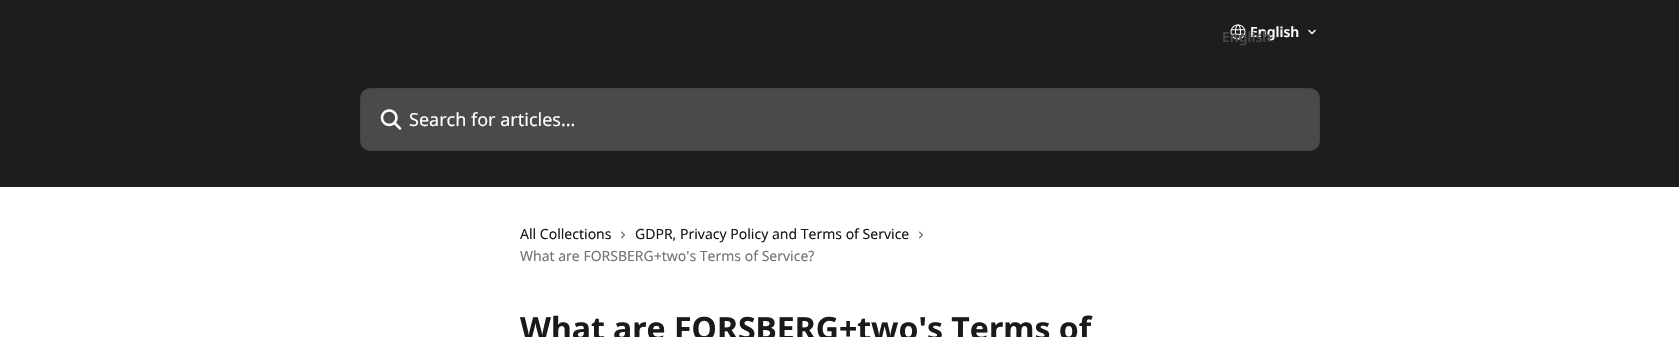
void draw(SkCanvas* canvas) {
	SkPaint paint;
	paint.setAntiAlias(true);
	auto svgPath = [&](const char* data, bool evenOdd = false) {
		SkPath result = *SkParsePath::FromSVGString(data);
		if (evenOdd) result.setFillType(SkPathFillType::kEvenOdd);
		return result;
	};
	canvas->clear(0xffffffff);
	paint.setColor(0xff1d1d1d);
	canvas->drawRect(SkRect::MakeXYWH(0, 0, 1679, 187), paint);
	canvas->drawImageRect(SkImages::DeferredFromEncodedData(SkData::MakeFromFileName("img1.png")), SkRect::MakeXYWH(1230, 24, 16, 16), SkSamplingOptions());
	SkFont f1(fontMgr->matchFamilyStyle("Noto Sans", SkFontStyle(600, SkFontStyle::kNormal_Width, SkFontStyle::kUpright_Slant)), 14);
	f1.setSubpixel(true);
	paint.setColor(0xffffffff);
	canvas->drawString("English", 1250, 37, f1, paint);
	paint.setColor(0xff484848);
	canvas->drawString("English", 1222, 42, f1, paint);
	paint.setStroke(true);
	paint.setStrokeWidth(1.5);
	paint.setStrokeCap(SkPaint::kRound_Cap);
	paint.setStrokeJoin(SkPaint::kRound_Join);
	paint.setColor(0xffffffff);
	canvas->drawPath(svgPath("M1309 30.5L1312 33.5L1315 30.5"), paint);
	paint.setStroke(false);
	paint.setColor(0xff4a4a4a);
	canvas->drawRoundRect(SkRect::MakeXYWH(360, 88, 960, 63), 10, 10, paint);
	paint.setStroke(true);
	paint.setStrokeWidth(1);
	paint.setStrokeCap(SkPaint::kButt_Cap);
	paint.setStrokeJoin(SkPaint::kMiter_Join);
	paint.setColor(0x14000000);
	canvas->drawRoundRect(SkRect::MakeXYWH(360.5, 88.5, 959, 62), 9.5, 9.5, paint);
	canvas->drawImageRect(SkImages::DeferredFromEncodedData(SkData::MakeFromFileName("img2.png")), SkRect::MakeXYWH(380, 109, 22, 21), SkSamplingOptions());
	SkFont f2(fontMgr->matchFamilyStyle("Noto Sans", SkFontStyle::Normal()), 18);
	f2.setSubpixel(true);
	paint.setStroke(false);
	paint.setColor(0xffffffff);
	canvas->drawString("Search for articles...", 409, 126, f2, paint);
	SkFont f3(fontMgr->matchFamilyStyle("Noto Sans", SkFontStyle::Normal()), 14);
	f3.setSubpixel(true);
	paint.setColor(0xff1a1a1a);
	canvas->drawString("All Collections", 520, 239, f3, paint);
	canvas->drawImageRect(SkImages::DeferredFromEncodedData(SkData::MakeFromFileName("img3.png")), SkRect::MakeXYWH(621, 231, 4, 8), SkSamplingOptions());
	canvas->drawString("GDPR, Privacy Policy and Terms of Service", 635, 239, f3, paint);
	canvas->drawImageRect(SkImages::DeferredFromEncodedData(SkData::MakeFromFileName("img3.png")), SkRect::MakeXYWH(919, 231, 4, 8), SkSamplingOptions());
	paint.setColor(0xff737373);
	canvas->drawString("What are FORSBERG+two's Terms of Service?", 520, 261, f3, paint);
	SkFont f4(fontMgr->matchFamilyStyle("Noto Sans", SkFontStyle::Bold()), 32);
	f4.setSubpixel(true);
	paint.setColor(0xff1a1a1a);
	canvas->drawString("What are FORSBERG+two's Terms of", 520, 340, f4, paint);
}
